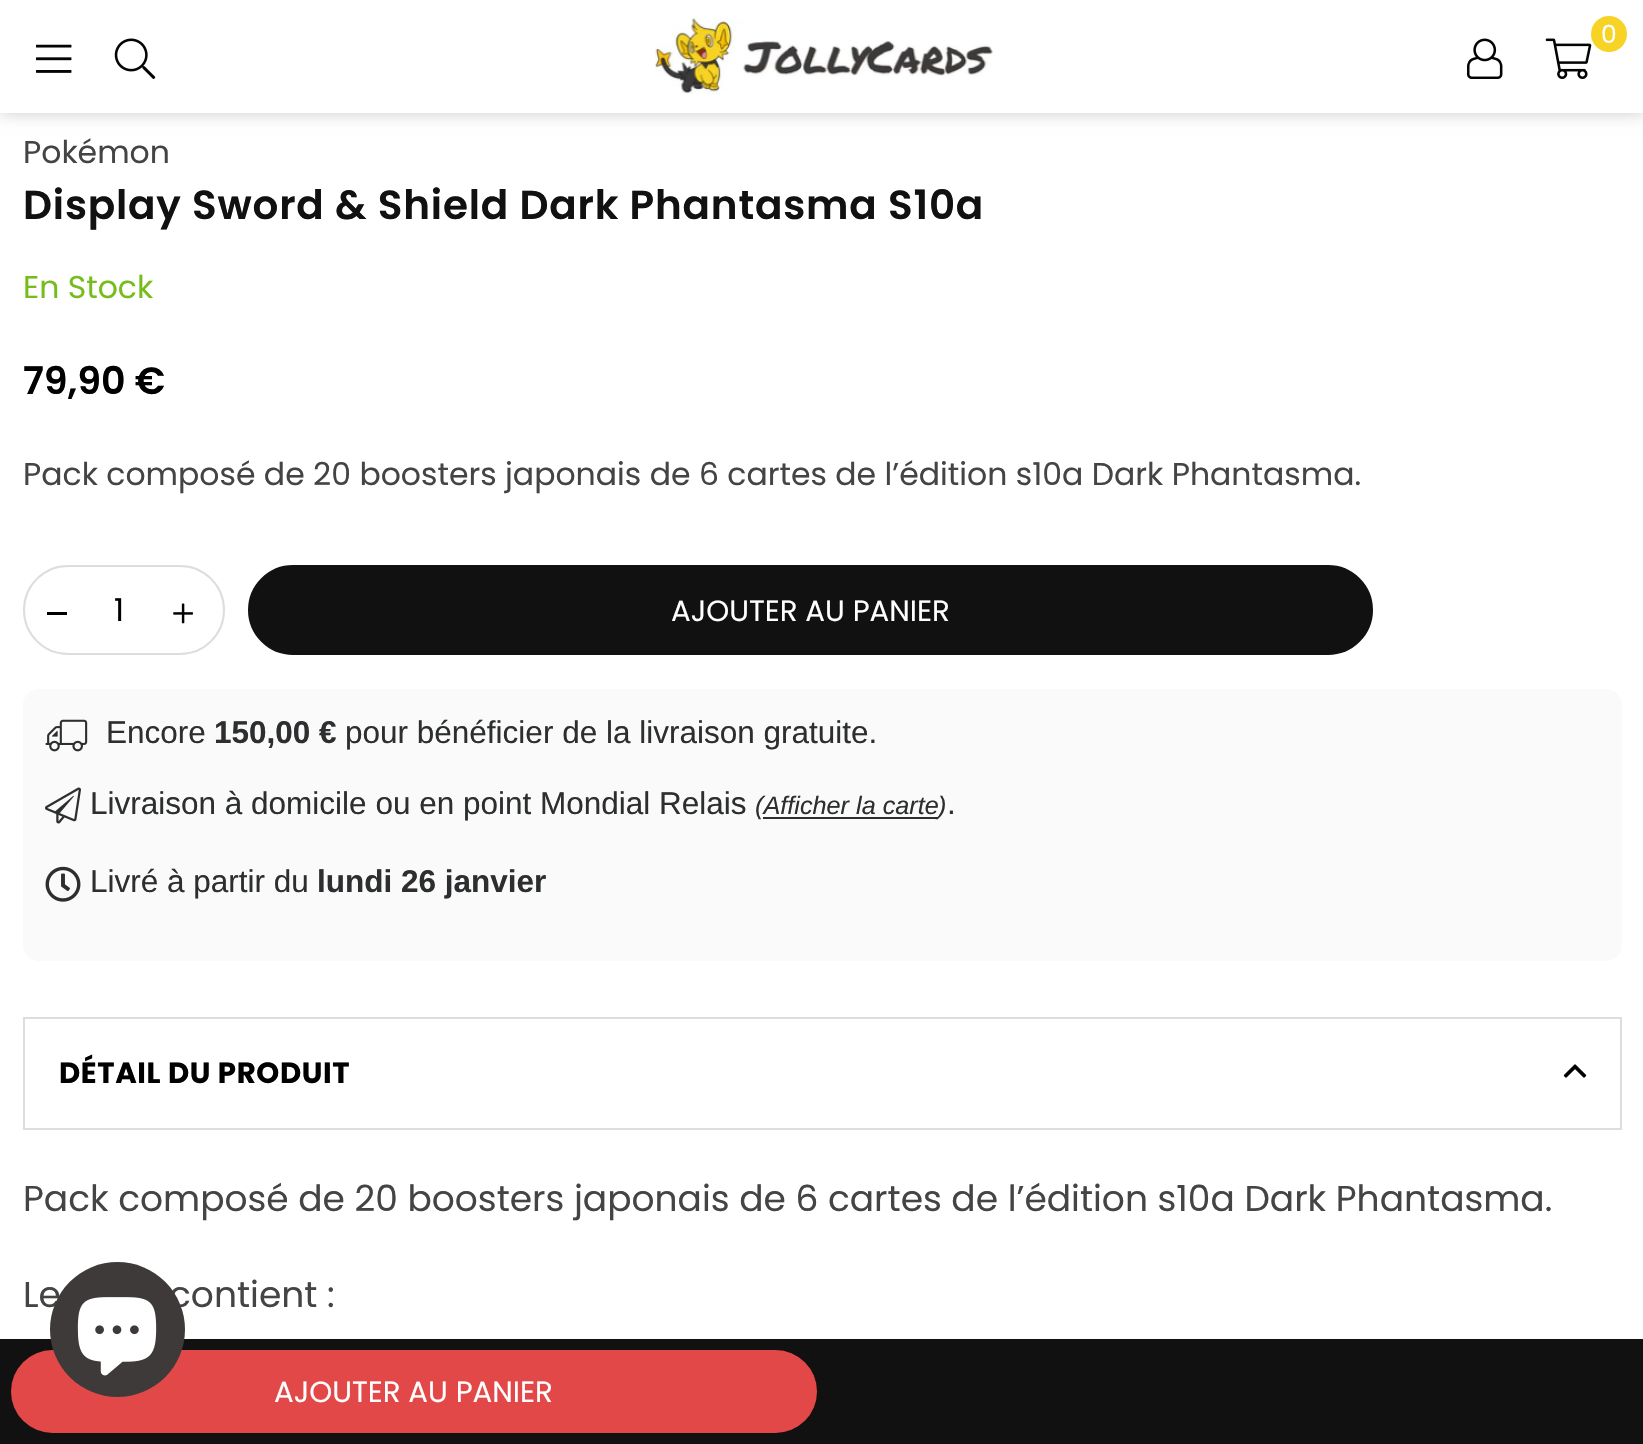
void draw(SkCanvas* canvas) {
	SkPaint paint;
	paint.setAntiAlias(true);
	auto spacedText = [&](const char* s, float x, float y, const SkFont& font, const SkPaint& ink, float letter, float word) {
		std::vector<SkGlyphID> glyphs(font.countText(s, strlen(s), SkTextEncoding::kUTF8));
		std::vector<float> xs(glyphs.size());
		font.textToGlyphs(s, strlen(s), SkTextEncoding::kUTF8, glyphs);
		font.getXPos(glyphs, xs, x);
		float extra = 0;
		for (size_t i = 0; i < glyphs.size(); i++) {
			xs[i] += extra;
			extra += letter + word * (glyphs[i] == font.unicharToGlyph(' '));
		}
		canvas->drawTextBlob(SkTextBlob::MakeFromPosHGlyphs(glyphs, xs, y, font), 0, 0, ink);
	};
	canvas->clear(0xffffffff);
	paint.setColor(0x33000000);
	paint.setMaskFilter(SkMaskFilter::MakeBlur(kNormal_SkBlurStyle, 8));
	canvas->drawRect(SkRect::MakeXYWH(0, 0, 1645, 113), paint);
	paint.setMaskFilter(nullptr);
	paint.setColor(0xffffffff);
	canvas->drawRect(SkRect::MakeXYWH(0, 0, 1643, 113), paint);
	canvas->drawImageRect(SkImages::DeferredFromEncodedData(SkData::MakeFromFileName("img1.png")), SkRect::MakeXYWH(655, 18, 338, 76), SkSamplingOptions());
	canvas->drawImageRect(SkImages::DeferredFromEncodedData(SkData::MakeFromFileName("img2.png")), SkRect::MakeXYWH(1545, 38, 47, 41), SkSamplingOptions());
	paint.setColor(0xfff7d325);
	canvas->drawCircle(1609, 34, 18, paint);
	SkFont f1(fontMgr->matchFamilyStyle("Poppins", SkFontStyle::Normal()), 25);
	f1.setSubpixel(true);
	paint.setColor(0xffffffff);
	canvas->drawString("0", 1601, 43, f1, paint);
	canvas->drawImageRect(SkImages::DeferredFromEncodedData(SkData::MakeFromFileName("img3.png")), SkRect::MakeXYWH(1467, 38, 36, 41), SkSamplingOptions());
	canvas->drawImageRect(SkImages::DeferredFromEncodedData(SkData::MakeFromFileName("img4.png")), SkRect::MakeXYWH(36, 44, 36, 29), SkSamplingOptions());
	canvas->drawImageRect(SkImages::DeferredFromEncodedData(SkData::MakeFromFileName("img5.png")), SkRect::MakeXYWH(114, 38, 42, 41), SkSamplingOptions());
	SkFont f2(fontMgr->matchFamilyStyle("Poppins", SkFontStyle::Normal()), 31.5);
	f2.setSubpixel(true);
	paint.setColor(0xff444444);
	canvas->drawString("Pokémon", 23, 163, f2, paint);
	SkFont f3(fontMgr->matchFamilyStyle("Poppins", SkFontStyle(600, SkFontStyle::kNormal_Width, SkFontStyle::kUpright_Slant)), 40.5);
	f3.setSubpixel(true);
	paint.setColor(0xff111111);
	spacedText("Display Sword & Shield Dark Phantasma S10a", 23, 219, f3, paint, 0.8, 0);
	paint.setColor(0xff76bd1c);
	canvas->drawString("En Stock", 23, 298, f2, paint);
	SkFont f4(fontMgr->matchFamilyStyle("Poppins", SkFontStyle(600, SkFontStyle::kNormal_Width, SkFontStyle::kUpright_Slant)), 38);
	f4.setSubpixel(true);
	paint.setColor(0xff000000);
	canvas->drawString("79,90 €", 23, 394, f4, paint);
	paint.setColor(0xff444444);
	canvas->drawString("Pack composé de 20 boosters japonais de 6 cartes de l’édition s10a Dark Phantasma.", 23, 485, f2, paint);
	paint.setStroke(true);
	paint.setStrokeWidth(2);
	paint.setColor(0xffdddddd);
	canvas->drawRoundRect(SkRect::MakeXYWH(24, 566, 200, 88), 44, 44, paint);
	paint.setStroke(false);
	paint.setColor(0xff000000);
	canvas->drawRect(SkRect::MakeXYWH(47, 612, 20, 3), paint);
	canvas->drawString("1", 114, 621, f2, paint);
	canvas->drawImageRect(SkImages::DeferredFromEncodedData(SkData::MakeFromFileName("img6.png")), SkRect::MakeXYWH(173, 603, 20, 21), SkSamplingOptions());
	paint.setColor(0xff111111);
	canvas->drawRoundRect(SkRect::MakeXYWH(249, 566, 1123, 88), 44, 44, paint);
	paint.setStroke(true);
	canvas->drawRoundRect(SkRect::MakeXYWH(249, 566, 1123, 88), 44, 44, paint);
	SkFont f5(fontMgr->matchFamilyStyle("Poppins", SkFontStyle::Normal()), 29.25);
	f5.setSubpixel(true);
	paint.setStroke(false);
	paint.setColor(0xffffffff);
	canvas->drawString("AJOUTER AU PANIER", 671, 621, f5, paint);
	paint.setColor(0xfffafafa);
	canvas->drawRoundRect(SkRect::MakeXYWH(23, 689, 1599, 272), 16, 16, paint);
	canvas->drawImageRect(SkImages::DeferredFromEncodedData(SkData::MakeFromFileName("img7.png")), SkRect::MakeXYWH(45, 719, 43, 33), SkSamplingOptions());
	SkFont f6(fontMgr->matchFamilyStyle("Liberation Sans", SkFontStyle::Normal()), 31.5);
	f6.setSubpixel(true);
	paint.setColor(0xff2c2e2f);
	canvas->drawString("Encore", 106, 743, f6, paint);
	SkFont f7(fontMgr->matchFamilyStyle("Liberation Sans", SkFontStyle::Bold()), 31.5);
	f7.setSubpixel(true);
	canvas->drawString("150,00 €", 214, 743, f7, paint);
	canvas->drawString("pour bénéficier de la livraison gratuite.", 345, 743, f6, paint);
	canvas->drawImageRect(SkImages::DeferredFromEncodedData(SkData::MakeFromFileName("img8.png")), SkRect::MakeXYWH(45, 787, 36, 37), SkSamplingOptions());
	canvas->drawString("Livraison à domicile ou en point Mondial Relais", 90, 814, f6, paint);
	SkFont f8(fontMgr->matchFamilyStyle("Liberation Sans", SkFontStyle::Italic()), 25.25);
	f8.setSubpixel(true);
	canvas->drawString("(Afficher la carte", 755, 814, f8, paint);
	canvas->drawRect(SkRect::MakeXYWH(763, 817, 175, 2), paint);
	canvas->drawString(")", 938, 814, f8, paint);
	canvas->drawString(".", 947, 814, f6, paint);
	canvas->drawImageRect(SkImages::DeferredFromEncodedData(SkData::MakeFromFileName("img9.png")), SkRect::MakeXYWH(45, 866, 36, 36), SkSamplingOptions());
	canvas->drawString("Livré à partir du", 90, 892, f6, paint);
	canvas->drawString("lundi 26 janvier", 317, 892, f7, paint);
	paint.setStroke(true);
	paint.setColor(0xffdddddd);
	canvas->drawRect(SkRect::MakeXYWH(24, 1018, 1597, 111), paint);
	SkFont f9(fontMgr->matchFamilyStyle("Poppins", SkFontStyle::Bold()), 29.25);
	f9.setSubpixel(true);
	paint.setStroke(false);
	paint.setColor(0xff000000);
	spacedText("DÉTAIL DU PRODUIT", 59, 1083, f9, paint, 0.6, 0);
	canvas->drawImageRect(SkImages::DeferredFromEncodedData(SkData::MakeFromFileName("img10.png")), SkRect::MakeXYWH(1563, 1064, 24, 14), SkSamplingOptions());
	SkFont f10(fontMgr->matchFamilyStyle("Poppins", SkFontStyle::Normal()), 36);
	f10.setSubpixel(true);
	paint.setColor(0xff444444);
	canvas->drawString("Pack composé de 20 boosters japonais de 6 cartes de l’édition s10a Dark Phantasma.", 23, 1211, f10, paint);
	canvas->drawString("Le", 23, 1307, f10, paint);
	canvas->drawString("contient :", 169, 1307, f10, paint);
	paint.setColor(0xff111111);
	canvas->drawRect(SkRect::MakeXYWH(0, 1339, 1643, 105), paint);
	paint.setColor(0xffe34848);
	canvas->drawRoundRect(SkRect::MakeXYWH(11, 1350, 806, 83), 41.5, 41.5, paint);
	paint.setColor(0xffffffff);
	canvas->drawString("AJOUTER AU PANIER", 274, 1402, f5, paint);
	paint.setColor(0xff3e3a39);
	canvas->drawCircle(117.5, 1329.5, 67.5, paint);
	canvas->drawImageRect(SkImages::DeferredFromEncodedData(SkData::MakeFromFileName("img11.png")), SkRect::MakeXYWH(77, 1297, 80, 79), SkSamplingOptions());
}
